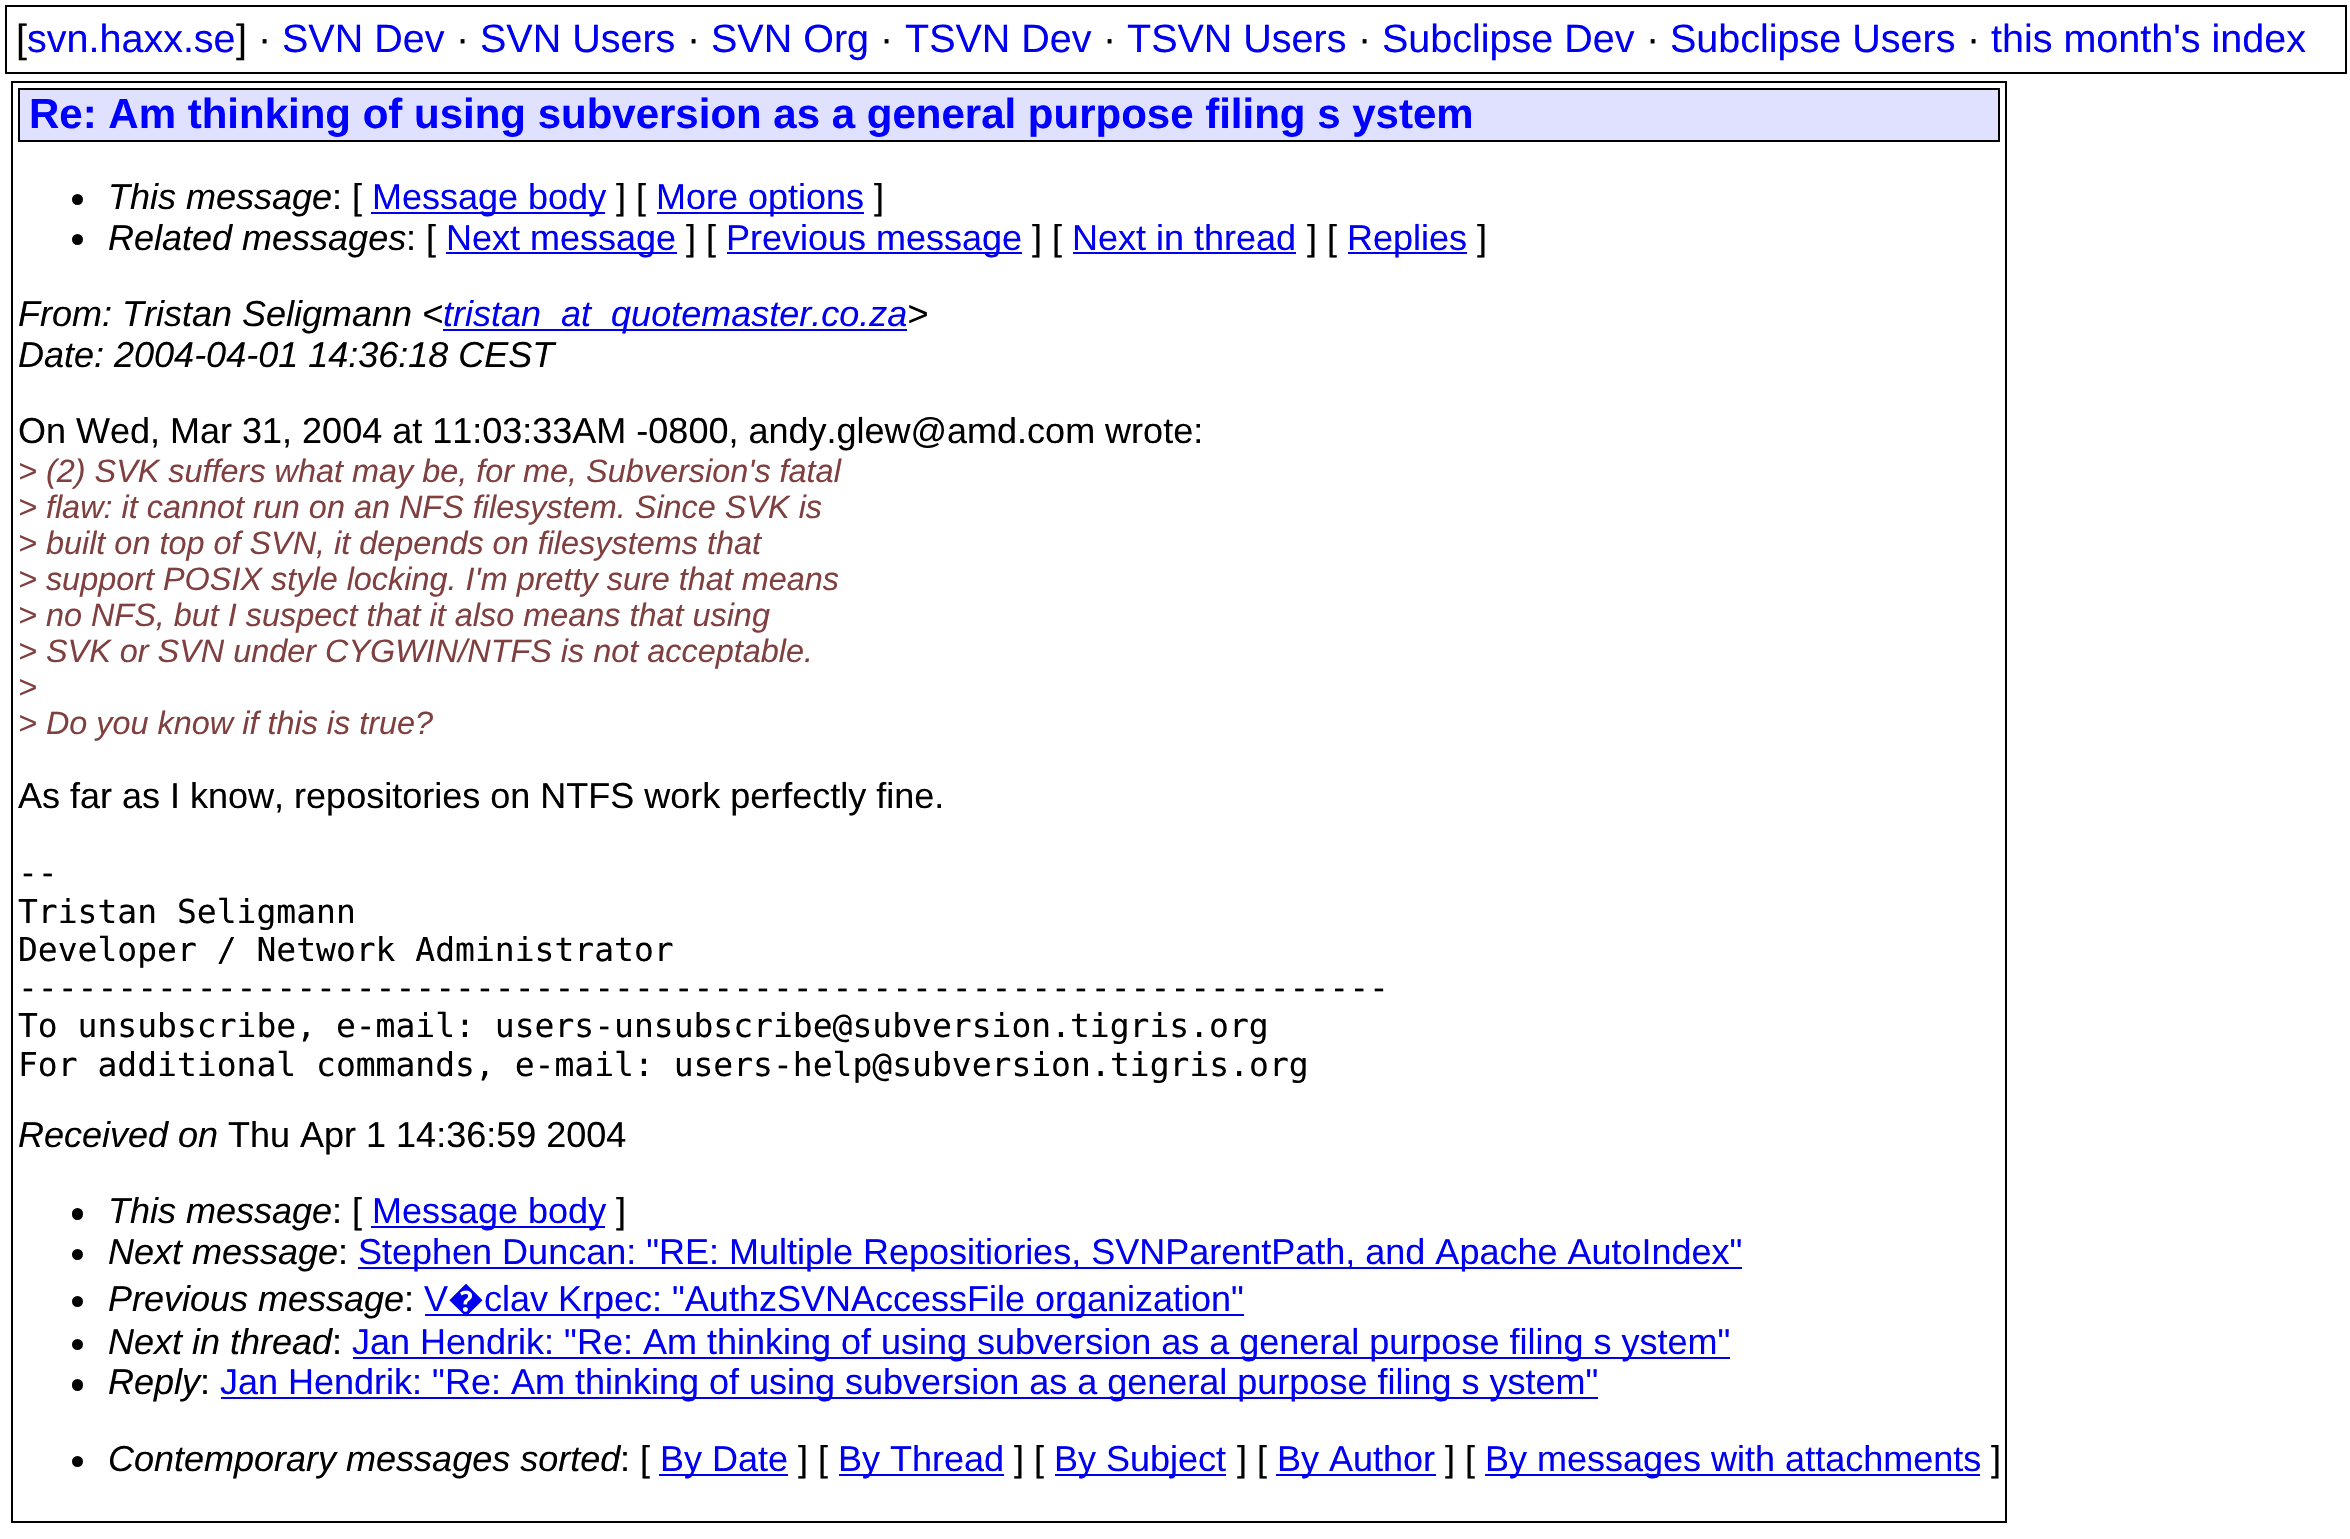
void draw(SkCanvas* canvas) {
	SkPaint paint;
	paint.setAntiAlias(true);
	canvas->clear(0xffffffff);
	paint.setStroke(true);
	paint.setStrokeWidth(2);
	paint.setColor(0xff000000);
	canvas->drawRect(SkRect::MakeXYWH(6, 6, 2340, 67), paint);
	SkFont f1(fontMgr->matchFamilyStyle("Liberation Sans", SkFontStyle::Normal()), 39.5);
	f1.setSubpixel(true);
	paint.setStroke(false);
	canvas->drawString("[", 16, 52, f1, paint);
	paint.setColor(0xff0000ee);
	canvas->drawString("svn.haxx.se", 27, 52, f1, paint);
	paint.setColor(0xff000000);
	canvas->drawString("] ·", 236, 52, f1, paint);
	paint.setColor(0xff0000ee);
	canvas->drawString("SVN Dev", 282, 52, f1, paint);
	paint.setColor(0xff000000);
	canvas->drawString("·", 456, 52, f1, paint);
	paint.setColor(0xff0000ee);
	canvas->drawString("SVN Users", 480, 52, f1, paint);
	paint.setColor(0xff000000);
	canvas->drawString("·", 687, 52, f1, paint);
	paint.setColor(0xff0000ee);
	canvas->drawString("SVN Org", 711, 52, f1, paint);
	paint.setColor(0xff000000);
	canvas->drawString("·", 880, 52, f1, paint);
	paint.setColor(0xff0000ee);
	canvas->drawString("TSVN Dev", 905, 52, f1, paint);
	paint.setColor(0xff000000);
	canvas->drawString("·", 1103, 52, f1, paint);
	paint.setColor(0xff0000ee);
	canvas->drawString("TSVN Users", 1127, 52, f1, paint);
	paint.setColor(0xff000000);
	canvas->drawString("·", 1358, 52, f1, paint);
	paint.setColor(0xff0000ee);
	canvas->drawString("Subclipse Dev", 1382, 52, f1, paint);
	paint.setColor(0xff000000);
	canvas->drawString("·", 1646, 52, f1, paint);
	paint.setColor(0xff0000ee);
	canvas->drawString("Subclipse Users", 1670, 52, f1, paint);
	paint.setColor(0xff000000);
	canvas->drawString("·", 1967, 52, f1, paint);
	paint.setColor(0xff0000ee);
	canvas->drawString("this month's index", 1991, 52, f1, paint);
	paint.setStroke(true);
	paint.setColor(0xff000000);
	canvas->drawRect(SkRect::MakeXYWH(12, 82, 1994, 1440), paint);
	paint.setStroke(false);
	paint.setColor(0xffe0e0ff);
	canvas->drawRect(SkRect::MakeXYWH(19, 89, 1980, 52), paint);
	paint.setStroke(true);
	paint.setColor(0xff000000);
	canvas->drawRect(SkRect::MakeXYWH(19, 89, 1980, 52), paint);
	SkFont f2(fontMgr->matchFamilyStyle("Liberation Sans", SkFontStyle::Bold()), 42);
	f2.setSubpixel(true);
	paint.setStroke(false);
	paint.setColor(0xff0000ff);
	canvas->drawString("Re: Am thinking of using subversion as a general purpose filing s ystem", 29, 128, f2, paint);
	paint.setColor(0xff000000);
	canvas->drawCircle(77.5, 199.5, 5.5, paint);
	SkFont f3(fontMgr->matchFamilyStyle("Liberation Sans", SkFontStyle::Italic()), 36);
	f3.setSubpixel(true);
	canvas->drawString("This message", 108, 209, f3, paint);
	SkFont f4(fontMgr->matchFamilyStyle("Liberation Sans", SkFontStyle::Normal()), 36);
	f4.setSubpixel(true);
	canvas->drawString(": [", 332, 209, f4, paint);
	paint.setColor(0xff0000ee);
	canvas->drawRect(SkRect::MakeXYWH(371, 212, 234, 2), paint);
	canvas->drawString("Message body", 372, 209, f4, paint);
	paint.setColor(0xff000000);
	canvas->drawString("] [", 616, 209, f4, paint);
	paint.setColor(0xff0000ee);
	canvas->drawRect(SkRect::MakeXYWH(657, 212, 207, 2), paint);
	canvas->drawString("More options", 656, 209, f4, paint);
	paint.setColor(0xff000000);
	canvas->drawString("]", 874, 209, f4, paint);
	canvas->drawCircle(77.5, 239.5, 5.5, paint);
	canvas->drawString("Related messages", 108, 250, f3, paint);
	canvas->drawString(": [", 406, 250, f4, paint);
	paint.setColor(0xff0000ee);
	canvas->drawRect(SkRect::MakeXYWH(446, 252, 231, 2), paint);
	canvas->drawString("Next message", 446, 250, f4, paint);
	paint.setColor(0xff000000);
	canvas->drawString("] [", 686, 250, f4, paint);
	paint.setColor(0xff0000ee);
	canvas->drawRect(SkRect::MakeXYWH(727, 252, 295, 2), paint);
	canvas->drawString("Previous message", 726, 250, f4, paint);
	paint.setColor(0xff000000);
	canvas->drawString("] [", 1032, 250, f4, paint);
	paint.setColor(0xff0000ee);
	canvas->drawString("Next in thread", 1072, 250, f4, paint);
	canvas->drawRect(SkRect::MakeXYWH(1073, 252, 223, 2), paint);
	paint.setColor(0xff000000);
	canvas->drawString("] [", 1307, 250, f4, paint);
	paint.setColor(0xff0000ee);
	canvas->drawRect(SkRect::MakeXYWH(1348, 252, 119, 2), paint);
	canvas->drawString("Replies", 1347, 250, f4, paint);
	paint.setColor(0xff000000);
	canvas->drawString("]", 1477, 250, f4, paint);
	canvas->drawString("From: Tristan Seligmann <", 18, 326, f3, paint);
	paint.setColor(0xff0000ee);
	canvas->drawRect(SkRect::MakeXYWH(443, 329, 464, 2), paint);
	canvas->drawString("tristan_at_quotemaster.co.za", 443, 326, f3, paint);
	paint.setColor(0xff000000);
	canvas->drawString(">", 907, 326, f3, paint);
	canvas->drawString("Date: 2004-04-01 14:36:18 CEST", 18, 367, f3, paint);
	canvas->drawString("On Wed, Mar 31, 2004 at 11:03:33AM -0800, andy.glew@amd.com wrote:", 18, 443, f4, paint);
	SkFont f5(fontMgr->matchFamilyStyle("Liberation Sans", SkFontStyle::Italic()), 32.4);
	f5.setSubpixel(true);
	paint.setColor(0xff804040);
	canvas->drawString("> (2) SVK suffers what may be, for me, Subversion's fatal", 18, 482, f5, paint);
	canvas->drawString("> flaw: it cannot run on an NFS filesystem. Since SVK is", 18, 518, f5, paint);
	canvas->drawString("> built on top of SVN, it depends on filesystems that", 18, 554, f5, paint);
	canvas->drawString("> support POSIX style locking. I'm pretty sure that means", 18, 590, f5, paint);
	canvas->drawString("> no NFS, but I suspect that it also means that using", 18, 626, f5, paint);
	canvas->drawString("> SVK or SVN under CYGWIN/NTFS is not acceptable.", 18, 662, f5, paint);
	canvas->drawString(">", 18, 698, f5, paint);
	canvas->drawString("> Do you know if this is true?", 18, 734, f5, paint);
	paint.setColor(0xff000000);
	canvas->drawString("As far as I know, repositories on NTFS work perfectly fine.", 18, 808, f4, paint);
	SkFont f6(fontMgr->matchFamilyStyle("DejaVu Sans Mono", SkFontStyle::Normal()), 33);
	f6.setSubpixel(true);
	canvas->drawString("--", 18, 884, f6, paint);
	canvas->drawString("Tristan Seligmann", 18, 923, f6, paint);
	canvas->drawString("Developer / Network Administrator", 18, 961, f6, paint);
	canvas->drawString("---------------------------------------------------------------------", 18, 999, f6, paint);
	canvas->drawString("To unsubscribe, e-mail: users-unsubscribe@subversion.", 18, 1037, f6, paint);
	canvas->drawString("tigris.org", 1070, 1037, f6, paint);
	canvas->drawString("For additional commands, e-mail: users-help@subversion.", 18, 1076, f6, paint);
	canvas->drawString("tigris.org", 1110, 1076, f6, paint);
	canvas->drawString("Received on", 18, 1147, f3, paint);
	canvas->drawString("Thu Apr 1 14:36:59 2004", 228, 1147, f4, paint);
	canvas->drawRoundRect(SkRect::MakeXYWH(72, 1208, 11, 12), 5.5, 5.5, paint);
	canvas->drawString("This message", 108, 1223, f3, paint);
	canvas->drawString(": [", 332, 1223, f4, paint);
	paint.setColor(0xff0000ee);
	canvas->drawRect(SkRect::MakeXYWH(371, 1226, 234, 2), paint);
	canvas->drawString("Message body", 372, 1223, f4, paint);
	paint.setColor(0xff000000);
	canvas->drawString("]", 616, 1223, f4, paint);
	canvas->drawCircle(77.5, 1254.5, 5.5, paint);
	canvas->drawString("Next message", 108, 1264, f3, paint);
	canvas->drawString(":", 338, 1264, f4, paint);
	paint.setColor(0xff0000ee);
	canvas->drawRect(SkRect::MakeXYWH(358, 1267, 1384, 2), paint);
	canvas->drawString("Stephen Duncan: \"RE: Multiple Repositiories, SVNParentPath, and Apache AutoIndex\"", 358, 1264, f4, paint);
	paint.setColor(0xff000000);
	canvas->drawCircle(77.5, 1301.5, 5.5, paint);
	canvas->drawString("Previous message", 108, 1311, f3, paint);
	canvas->drawString(":", 404, 1311, f4, paint);
	paint.setColor(0xff0000ee);
	canvas->drawString("V", 424, 1311, f4, paint);
	canvas->drawRect(SkRect::MakeXYWH(425, 1314, 819, 2), paint);
	SkFont f7(fontMgr->matchFamilyStyle("Noto Sans", SkFontStyle::Normal()), 36);
	f7.setSubpixel(true);
	canvas->drawString("�", 448, 1311, f7, paint);
	canvas->drawString("clav Krpec: \"AuthzSVNAccessFile organization\"", 484, 1311, f4, paint);
	paint.setColor(0xff000000);
	canvas->drawCircle(77.5, 1344.5, 5.5, paint);
	canvas->drawString("Next in thread", 108, 1354, f3, paint);
	canvas->drawString(":", 332, 1354, f4, paint);
	paint.setColor(0xff0000ee);
	canvas->drawRect(SkRect::MakeXYWH(353, 1357, 1377, 2), paint);
	canvas->drawString("Jan Hendrik: \"Re: Am thinking of using subversion as a general purpose filing s ystem\"", 352, 1354, f4, paint);
	paint.setColor(0xff000000);
	canvas->drawRoundRect(SkRect::MakeXYWH(72, 1379, 11, 12), 5.5, 5.5, paint);
	canvas->drawString("Reply", 108, 1394, f3, paint);
	canvas->drawString(":", 200, 1394, f4, paint);
	paint.setColor(0xff0000ee);
	canvas->drawRect(SkRect::MakeXYWH(221, 1397, 1377, 2), paint);
	canvas->drawString("Jan Hendrik: \"Re: Am thinking of using subversion as a general purpose filing s ystem\"", 220, 1394, f4, paint);
	paint.setColor(0xff000000);
	canvas->drawCircle(77.5, 1461.5, 5.5, paint);
	canvas->drawString("Contemporary messages sorted", 108, 1471, f3, paint);
	canvas->drawString(": [", 620, 1471, f4, paint);
	paint.setColor(0xff0000ee);
	canvas->drawRect(SkRect::MakeXYWH(659, 1474, 129, 2), paint);
	canvas->drawString("By Date", 660, 1471, f4, paint);
	paint.setColor(0xff000000);
	canvas->drawString("] [", 798, 1471, f4, paint);
	paint.setColor(0xff0000ee);
	canvas->drawRect(SkRect::MakeXYWH(839, 1474, 165, 2), paint);
	canvas->drawString("By Thread", 838, 1471, f4, paint);
	paint.setColor(0xff000000);
	canvas->drawString("] [", 1014, 1471, f4, paint);
	paint.setColor(0xff0000ee);
	canvas->drawRect(SkRect::MakeXYWH(1055, 1474, 171, 2), paint);
	canvas->drawString("By Subject", 1054, 1471, f4, paint);
	paint.setColor(0xff000000);
	canvas->drawString("] [", 1237, 1471, f4, paint);
	paint.setColor(0xff0000ee);
	canvas->drawRect(SkRect::MakeXYWH(1276, 1474, 160, 2), paint);
	canvas->drawString("By Author", 1277, 1471, f4, paint);
	paint.setColor(0xff000000);
	canvas->drawString("] [", 1445, 1471, f4, paint);
	paint.setColor(0xff0000ee);
	canvas->drawRect(SkRect::MakeXYWH(1485, 1474, 495, 2), paint);
	canvas->drawString("By messages with attachments", 1485, 1471, f4, paint);
	paint.setColor(0xff000000);
	canvas->drawString("]", 1991, 1471, f4, paint);
}
